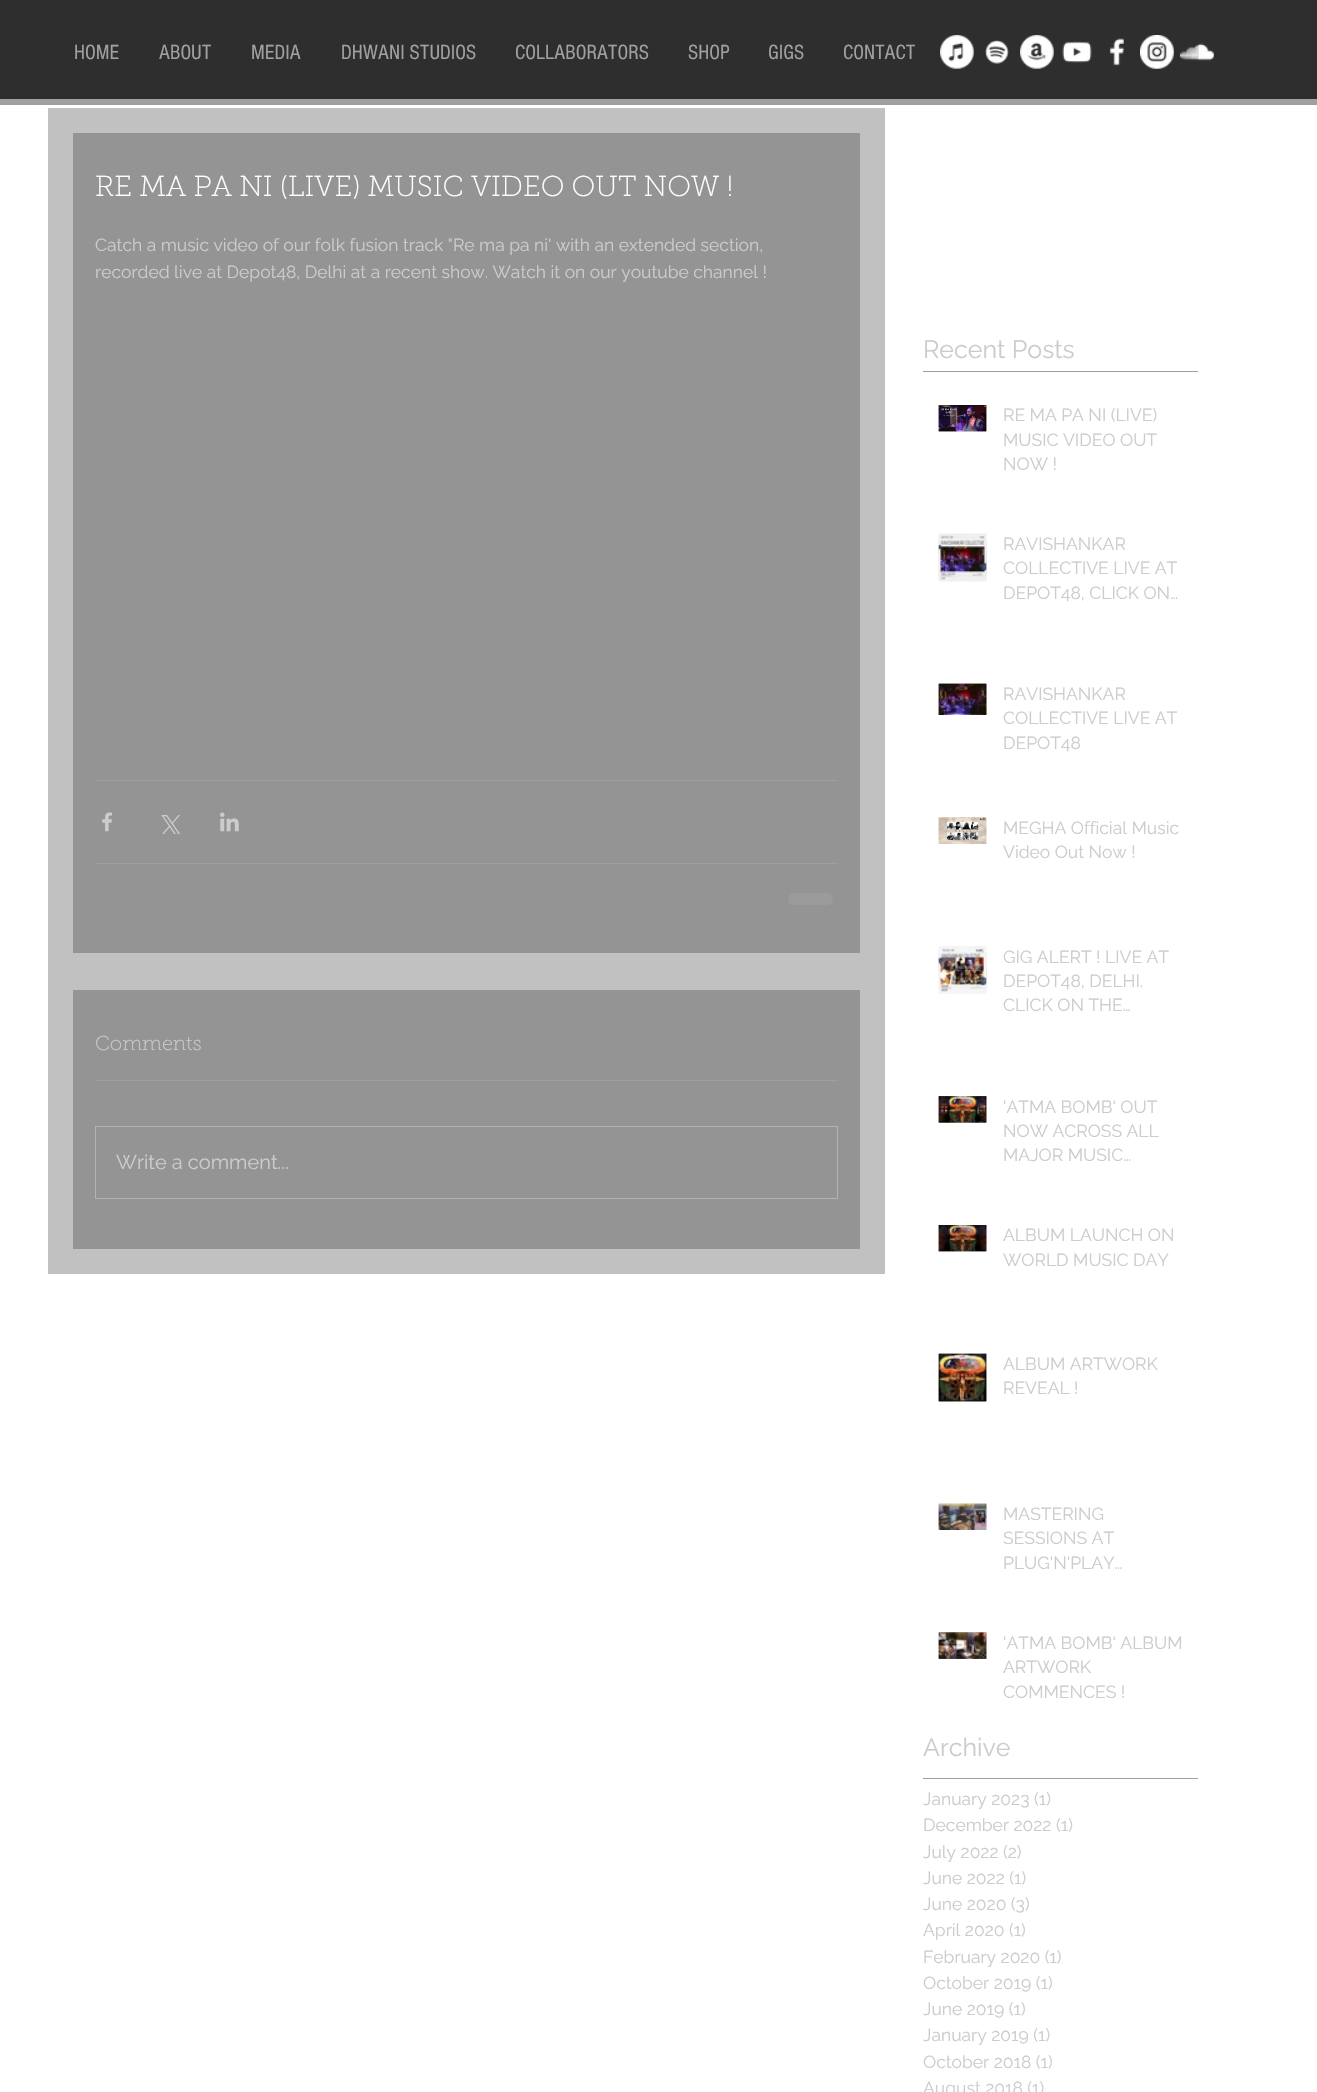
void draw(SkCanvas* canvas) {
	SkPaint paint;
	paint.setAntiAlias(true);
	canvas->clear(0xffffffff);
	paint.setColor(0xff2f2e2e);
	canvas->drawRect(SkRect::MakeXYWH(0, 0, 1317, 99), paint);
	paint.setColor(0xffa0a09f);
	canvas->drawRect(SkRect::MakeXYWH(0, 99, 1317, 6), paint);
	SkFont f1(fontMgr->matchFamilyStyle("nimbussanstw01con", SkFontStyle::Normal()), 21.25);
	f1.setSubpixel(true);
	canvas->drawString("HOME", 74, 59, f1, paint);
	canvas->drawString("ABOUT", 159, 59, f1, paint);
	canvas->drawString("MEDIA", 251, 59, f1, paint);
	canvas->drawString("DHWANI STUDIOS", 341, 59, f1, paint);
	canvas->drawString("COLLABORATORS", 515, 59, f1, paint);
	canvas->drawString("SHOP", 688, 59, f1, paint);
	canvas->drawString("GIGS", 768, 59, f1, paint);
	canvas->drawString("CONTACT", 843, 59, f1, paint);
	canvas->drawImageRect(SkImages::DeferredFromEncodedData(SkData::MakeFromFileName("img1.png")), SkRect::MakeXYWH(940, 35, 34, 34), SkSamplingOptions());
	canvas->drawImageRect(SkImages::DeferredFromEncodedData(SkData::MakeFromFileName("img2.png")), SkRect::MakeXYWH(985, 40, 24, 24), SkSamplingOptions());
	canvas->drawImageRect(SkImages::DeferredFromEncodedData(SkData::MakeFromFileName("img3.png")), SkRect::MakeXYWH(1020, 35, 34, 34), SkSamplingOptions());
	canvas->drawImageRect(SkImages::DeferredFromEncodedData(SkData::MakeFromFileName("img4.png")), SkRect::MakeXYWH(1062, 41, 30, 22), SkSamplingOptions());
	canvas->drawImageRect(SkImages::DeferredFromEncodedData(SkData::MakeFromFileName("img5.png")), SkRect::MakeXYWH(1109, 38, 15, 28), SkSamplingOptions());
	canvas->drawImageRect(SkImages::DeferredFromEncodedData(SkData::MakeFromFileName("img6.png")), SkRect::MakeXYWH(1140, 35, 34, 34), SkSamplingOptions());
	canvas->drawImageRect(SkImages::DeferredFromEncodedData(SkData::MakeFromFileName("img7.png")), SkRect::MakeXYWH(1180, 43, 34, 18), SkSamplingOptions());
	paint.setColor(0xffc1c1c1);
	canvas->drawRect(SkRect::MakeXYWH(48, 108, 837, 1166), paint);
	paint.setColor(0xff959494);
	canvas->drawRect(SkRect::MakeXYWH(73, 133, 787, 820), paint);
	SkFont f2(fontMgr->matchFamilyStyle("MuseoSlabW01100", SkFontStyle(100, SkFontStyle::kNormal_Width, SkFontStyle::kUpright_Slant)), 28.75);
	f2.setSubpixel(true);
	paint.setColor(0xffffffff);
	canvas->drawString("RE MA PA NI (LIVE) MUSIC VIDEO OUT NOW !", 95, 196, f2, paint);
	SkFont f3(fontMgr->matchFamilyStyle("Raleway", SkFontStyle::Normal()), 17.5);
	f3.setSubpixel(true);
	paint.setColor(0xffcccccc);
	canvas->drawString("Catch a music video of our folk fusion track \"Re ma pa ni' with an extended section,", 95, 251, f3, paint);
	canvas->drawString("recorded live at Depot48, Delhi at a recent show. Watch it on our youtube channel !", 95, 278, f3, paint);
	paint.setColor(0xffa09f9f);
	canvas->drawRect(SkRect::MakeXYWH(95, 780, 743, 1), paint);
	canvas->drawImageRect(SkImages::DeferredFromEncodedData(SkData::MakeFromFileName("img8.png")), SkRect::MakeXYWH(102, 812, 10, 20), SkSamplingOptions());
	canvas->drawImageRect(SkImages::DeferredFromEncodedData(SkData::MakeFromFileName("img9.png")), SkRect::MakeXYWH(161, 815, 19, 19), SkSamplingOptions());
	canvas->drawImageRect(SkImages::DeferredFromEncodedData(SkData::MakeFromFileName("img10.png")), SkRect::MakeXYWH(220, 812, 19, 20), SkSamplingOptions());
	canvas->drawRect(SkRect::MakeXYWH(95, 863, 743, 1), paint);
	paint.setColor(0xff9c9b9b);
	canvas->drawRoundRect(SkRect::MakeXYWH(788, 893, 45, 12), 6, 6, paint);
	paint.setColor(0xff959494);
	canvas->drawRect(SkRect::MakeXYWH(73, 990, 787, 259), paint);
	SkFont f4(fontMgr->matchFamilyStyle("MuseoSlabW01100", SkFontStyle(100, SkFontStyle::kNormal_Width, SkFontStyle::kUpright_Slant)), 20);
	f4.setSubpixel(true);
	paint.setColor(0xffcccccc);
	canvas->drawString("Comments", 95, 1050, f4, paint);
	paint.setColor(0xffa09f9f);
	canvas->drawRect(SkRect::MakeXYWH(95, 1080, 743, 1), paint);
	paint.setStroke(true);
	paint.setStrokeWidth(1);
	paint.setColor(0xffb5b4b4);
	canvas->drawRect(SkRect::MakeXYWH(95.5, 1126.5, 742, 72), paint);
	SkFont f5(fontMgr->matchFamilyStyle("Raleway", SkFontStyle::Normal()), 20);
	f5.setSubpixel(true);
	paint.setStroke(false);
	paint.setColor(0xffcccccc);
	canvas->drawString("Write a comment...", 116, 1169, f5, paint);
	SkFont f6(fontMgr->matchFamilyStyle("Raleway", SkFontStyle::Normal()), 25);
	f6.setSubpixel(true);
	canvas->drawString("Recent Posts", 923, 358, f6, paint);
	paint.setColor(0xffa0a09f);
	canvas->drawRect(SkRect::MakeXYWH(923, 371, 275, 1), paint);
	canvas->drawImageRect(SkImages::DeferredFromEncodedData(SkData::MakeFromFileName("img11.png")), SkRect::MakeXYWH(938, 405, 49, 27), SkSamplingOptions());
	canvas->drawImageRect(SkImages::DeferredFromEncodedData(SkData::MakeFromFileName("img12.png")), SkRect::MakeXYWH(938, 405, 49, 27), SkSamplingOptions());
	paint.setColor(0xffcccccc);
	canvas->drawString("RE MA PA NI (LIVE)", 1003, 421, f3, paint);
	canvas->drawString("MUSIC VIDEO OUT", 1003, 446, f3, paint);
	canvas->drawString("NOW !", 1003, 470, f3, paint);
	canvas->drawImageRect(SkImages::DeferredFromEncodedData(SkData::MakeFromFileName("img13.png")), SkRect::MakeXYWH(938, 533, 49, 49), SkSamplingOptions());
	canvas->drawImageRect(SkImages::DeferredFromEncodedData(SkData::MakeFromFileName("img14.png")), SkRect::MakeXYWH(938, 533, 49, 48), SkSamplingOptions());
	canvas->drawString("RAVISHANKAR", 1003, 550, f3, paint);
	canvas->drawString("COLLECTIVE LIVE AT", 1003, 574, f3, paint);
	canvas->drawString("DEPOT48, CLICK ON…", 1003, 599, f3, paint);
	canvas->drawImageRect(SkImages::DeferredFromEncodedData(SkData::MakeFromFileName("img15.png")), SkRect::MakeXYWH(938, 683, 49, 32), SkSamplingOptions());
	canvas->drawImageRect(SkImages::DeferredFromEncodedData(SkData::MakeFromFileName("img16.png")), SkRect::MakeXYWH(938, 683, 49, 32), SkSamplingOptions());
	canvas->drawString("RAVISHANKAR", 1003, 700, f3, paint);
	canvas->drawString("COLLECTIVE LIVE AT", 1003, 724, f3, paint);
	canvas->drawString("DEPOT48", 1003, 749, f3, paint);
	canvas->drawImageRect(SkImages::DeferredFromEncodedData(SkData::MakeFromFileName("img17.png")), SkRect::MakeXYWH(938, 817, 49, 27), SkSamplingOptions());
	canvas->drawImageRect(SkImages::DeferredFromEncodedData(SkData::MakeFromFileName("img18.png")), SkRect::MakeXYWH(938, 817, 49, 27), SkSamplingOptions());
	canvas->drawString("MEGHA Official Music", 1003, 834, f3, paint);
	canvas->drawString("Video Out Now !", 1003, 858, f3, paint);
	canvas->drawImageRect(SkImages::DeferredFromEncodedData(SkData::MakeFromFileName("img19.png")), SkRect::MakeXYWH(938, 946, 49, 48), SkSamplingOptions());
	canvas->drawImageRect(SkImages::DeferredFromEncodedData(SkData::MakeFromFileName("img20.png")), SkRect::MakeXYWH(938, 947, 49, 47), SkSamplingOptions());
	canvas->drawString("GIG ALERT ! LIVE AT", 1003, 963, f3, paint);
	canvas->drawString("DEPOT48, DELHI.", 1003, 987, f3, paint);
	canvas->drawString("CLICK ON THE…", 1003, 1011, f3, paint);
	canvas->drawImageRect(SkImages::DeferredFromEncodedData(SkData::MakeFromFileName("img21.png")), SkRect::MakeXYWH(938, 1096, 49, 27), SkSamplingOptions());
	canvas->drawImageRect(SkImages::DeferredFromEncodedData(SkData::MakeFromFileName("img22.png")), SkRect::MakeXYWH(938, 1096, 49, 27), SkSamplingOptions());
	canvas->drawString("'ATMA BOMB' OUT", 1003, 1113, f3, paint);
	canvas->drawString("NOW ACROSS ALL", 1003, 1137, f3, paint);
	canvas->drawString("MAJOR MUSIC…", 1003, 1161, f3, paint);
	canvas->drawImageRect(SkImages::DeferredFromEncodedData(SkData::MakeFromFileName("img23.png")), SkRect::MakeXYWH(938, 1225, 49, 27), SkSamplingOptions());
	canvas->drawImageRect(SkImages::DeferredFromEncodedData(SkData::MakeFromFileName("img24.png")), SkRect::MakeXYWH(938, 1225, 49, 27), SkSamplingOptions());
	canvas->drawString("ALBUM LAUNCH ON", 1003, 1241, f3, paint);
	canvas->drawString("WORLD MUSIC DAY", 1003, 1266, f3, paint);
	canvas->drawImageRect(SkImages::DeferredFromEncodedData(SkData::MakeFromFileName("img25.png")), SkRect::MakeXYWH(938, 1353, 49, 49), SkSamplingOptions());
	canvas->drawImageRect(SkImages::DeferredFromEncodedData(SkData::MakeFromFileName("img26.png")), SkRect::MakeXYWH(938, 1353, 49, 49), SkSamplingOptions());
	canvas->drawString("ALBUM ARTWORK", 1003, 1370, f3, paint);
	canvas->drawString("REVEAL !", 1003, 1394, f3, paint);
	canvas->drawImageRect(SkImages::DeferredFromEncodedData(SkData::MakeFromFileName("img27.png")), SkRect::MakeXYWH(938, 1503, 49, 27), SkSamplingOptions());
	canvas->drawImageRect(SkImages::DeferredFromEncodedData(SkData::MakeFromFileName("img28.png")), SkRect::MakeXYWH(938, 1503, 49, 27), SkSamplingOptions());
	canvas->drawString("MASTERING", 1003, 1520, f3, paint);
	canvas->drawString("SESSIONS AT", 1003, 1544, f3, paint);
	canvas->drawString("PLUG'N'PLAY…", 1003, 1569, f3, paint);
	canvas->drawImageRect(SkImages::DeferredFromEncodedData(SkData::MakeFromFileName("img29.png")), SkRect::MakeXYWH(938, 1632, 49, 27), SkSamplingOptions());
	canvas->drawImageRect(SkImages::DeferredFromEncodedData(SkData::MakeFromFileName("img30.png")), SkRect::MakeXYWH(938, 1632, 49, 27), SkSamplingOptions());
	canvas->drawString("'ATMA BOMB' ALBUM", 1003, 1649, f3, paint);
	canvas->drawString("ARTWORK", 1003, 1673, f3, paint);
	canvas->drawString("COMMENCES !", 1003, 1698, f3, paint);
	canvas->drawString("Archive", 923, 1756, f6, paint);
	paint.setColor(0xffa0a09f);
	canvas->drawRect(SkRect::MakeXYWH(923, 1778, 275, 1), paint);
	paint.setColor(0xffcccccc);
	canvas->drawString("January 2023 (1)", 923, 1805, f3, paint);
	canvas->drawString("December 2022 (1)", 923, 1831, f3, paint);
	canvas->drawString("July 2022 (2)", 923, 1858, f3, paint);
	canvas->drawString("June 2022 (1)", 923, 1884, f3, paint);
	canvas->drawString("June 2020 (3)", 923, 1910, f3, paint);
	canvas->drawString("April 2020 (1)", 923, 1936, f3, paint);
	canvas->drawString("February 2020 (1)", 923, 1963, f3, paint);
	canvas->drawString("October 2019 (1)", 923, 1989, f3, paint);
	canvas->drawString("June 2019 (1)", 923, 2015, f3, paint);
	canvas->drawString("January 2019 (1)", 923, 2041, f3, paint);
	canvas->drawString("October 2018 (1)", 923, 2068, f3, paint);
	canvas->drawString("August 2018 (1)", 923, 2094, f3, paint);
}
